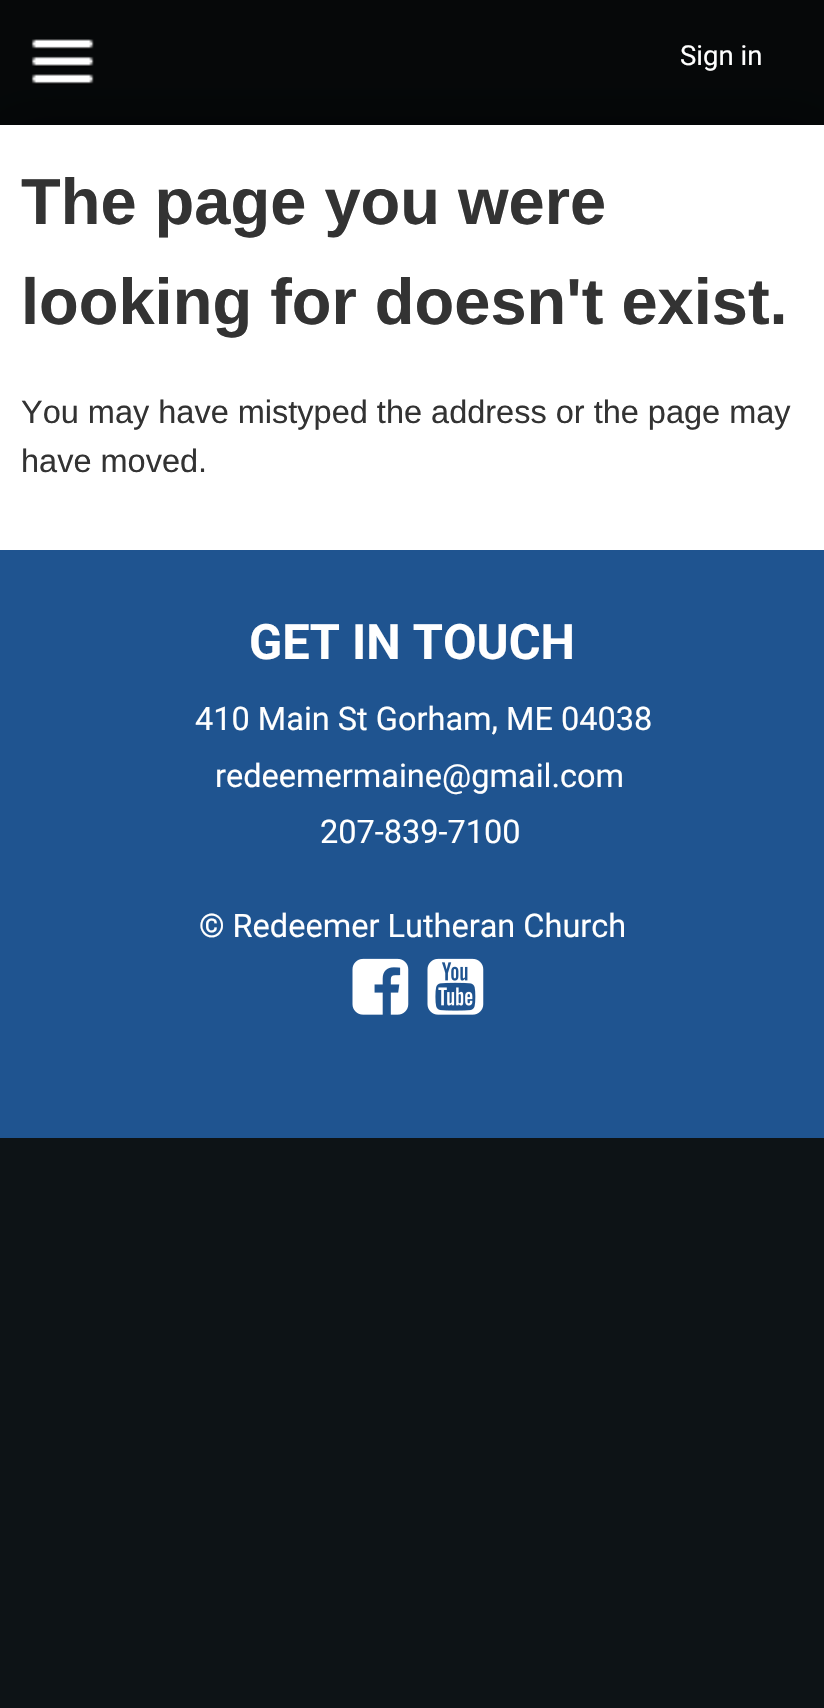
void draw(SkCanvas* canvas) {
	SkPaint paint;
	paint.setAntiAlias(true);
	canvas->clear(0xff0d1316);
	paint.setColor(0x80000000);
	paint.setMaskFilter(SkMaskFilter::MakeBlur(kNormal_SkBlurStyle, 25));
	canvas->drawRect(SkRect::MakeXYWH(0, 125, 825, 425), paint);
	paint.setMaskFilter(nullptr);
	paint.setColor(0x99000000);
	canvas->drawRect(SkRect::MakeXYWH(0, 0, 824, 125), paint);
	canvas->drawImageRect(SkImages::DeferredFromEncodedData(SkData::MakeFromFileName("img1.png")), SkRect::MakeXYWH(31, 39, 63, 46), SkSamplingOptions());
	SkFont f1(fontMgr->matchFamilyStyle("Roboto", SkFontStyle::Normal()), 27.5);
	f1.setSubpixel(true);
	paint.setColor(0xffffffff);
	canvas->drawString("Sign in", 680, 65, f1, paint);
	canvas->drawRect(SkRect::MakeXYWH(0, 125, 824, 425), paint);
	SkFont f2(fontMgr->matchFamilyStyle("Liberation Sans", SkFontStyle::Bold()), 65);
	f2.setSubpixel(true);
	paint.setColor(0xff333333);
	canvas->drawString("The page you were", 21, 224, f2, paint);
	canvas->drawString("looking for doesn't exist.", 21, 324, f2, paint);
	SkFont f3(fontMgr->matchFamilyStyle("Liberation Sans", SkFontStyle::Normal()), 32.5);
	f3.setSubpixel(true);
	canvas->drawString("You may have mistyped the address or the page may", 21, 423, f3, paint);
	canvas->drawString("have moved.", 21, 472, f3, paint);
	paint.setColor(0xff1f5490);
	canvas->drawRect(SkRect::MakeXYWH(0, 550, 824, 588), paint);
	SkFont f4(fontMgr->matchFamilyStyle("Roboto", SkFontStyle::Bold()), 48.75);
	f4.setSubpixel(true);
	paint.setColor(0xffffffff);
	canvas->drawString("GET IN TOUCH", 249, 659, f4, paint);
	SkFont f5(fontMgr->matchFamilyStyle("Roboto", SkFontStyle::Normal()), 32.5);
	f5.setSubpixel(true);
	canvas->drawString("410 Main St Gorham, ME 04038", 195, 730, f5, paint);
	canvas->drawString("redeemermaine@gmail.com", 215, 787, f5, paint);
	canvas->drawString("207-839-7100", 320, 843, f5, paint);
	canvas->drawString("© Redeemer Lutheran Church", 199, 937, f5, paint);
	canvas->drawImageRect(SkImages::DeferredFromEncodedData(SkData::MakeFromFileName("img2.png")), SkRect::MakeXYWH(352, 958, 57, 57), SkSamplingOptions());
	canvas->drawImageRect(SkImages::DeferredFromEncodedData(SkData::MakeFromFileName("img3.png")), SkRect::MakeXYWH(427, 958, 57, 57), SkSamplingOptions());
}
